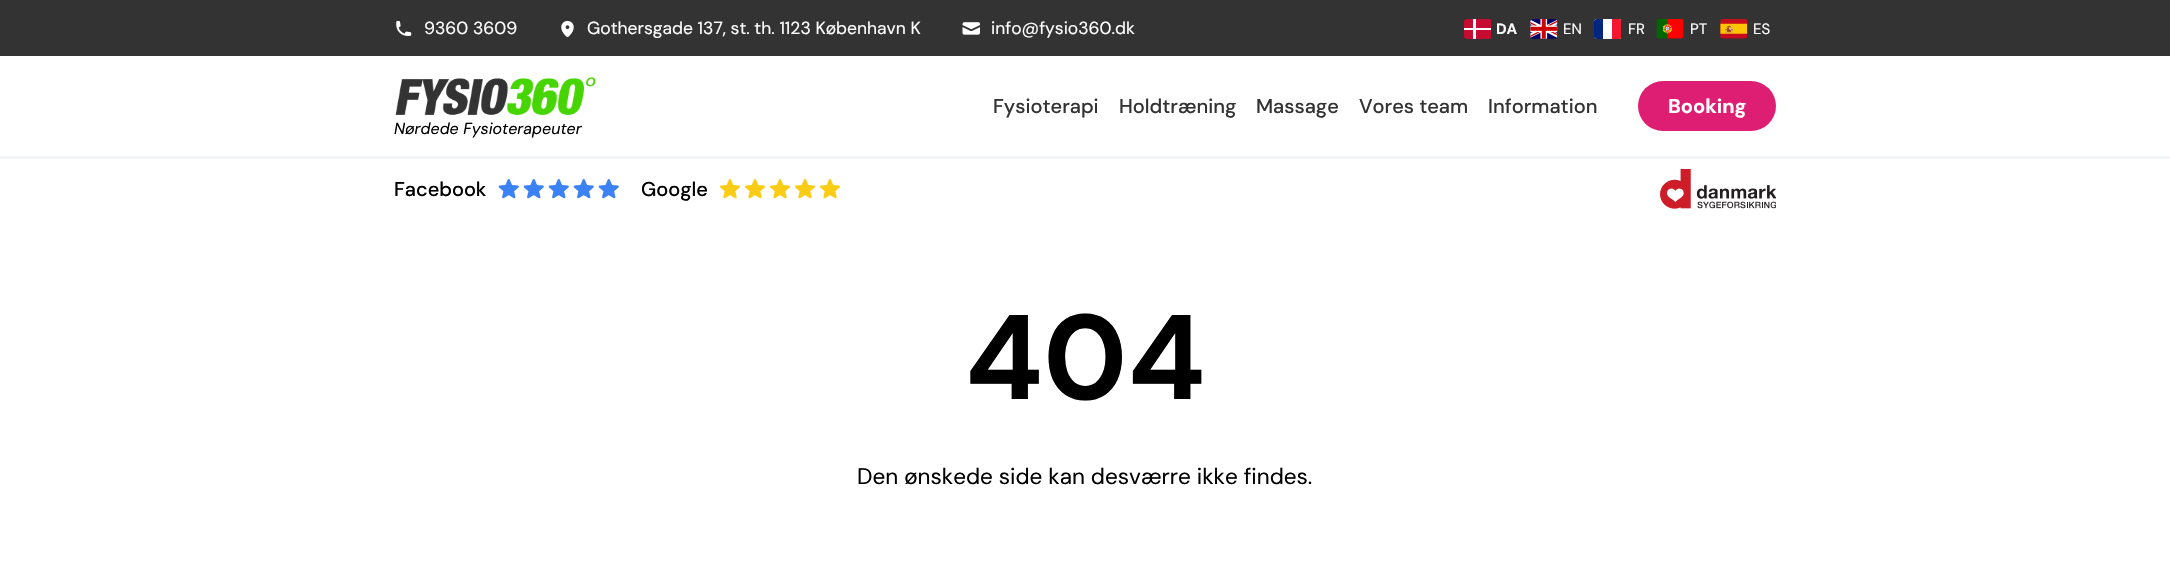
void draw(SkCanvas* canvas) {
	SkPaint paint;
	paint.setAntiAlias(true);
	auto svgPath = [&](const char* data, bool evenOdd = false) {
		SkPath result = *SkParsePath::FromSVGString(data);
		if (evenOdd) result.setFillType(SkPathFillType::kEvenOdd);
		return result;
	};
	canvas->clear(0xffffffff);
	paint.setColor(0xff333333);
	canvas->drawRect(SkRect::MakeXYWH(0, 0, 2170, 56), paint);
	canvas->drawImageRect(SkImages::DeferredFromEncodedData(SkData::MakeFromFileName("img1.png")), SkRect::MakeXYWH(396, 20, 16, 16), SkSamplingOptions());
	SkFont f1(fontMgr->matchFamilyStyle("DM Sans", SkFontStyle::Normal()), 17.5);
	f1.setSubpixel(true);
	paint.setColor(0xffffffff);
	canvas->drawString("9360 3609", 424, 34, f1, paint);
	canvas->drawImageRect(SkImages::DeferredFromEncodedData(SkData::MakeFromFileName("img2.png")), SkRect::MakeXYWH(561, 20, 13, 18), SkSamplingOptions());
	canvas->drawString("Gothersgade 137, st. th. 1123 København K", 587, 34, f1, paint);
	canvas->drawImageRect(SkImages::DeferredFromEncodedData(SkData::MakeFromFileName("img3.png")), SkRect::MakeXYWH(962, 22, 18, 13), SkSamplingOptions());
	canvas->drawString("info@fysio360.dk", 991, 34, f1, paint);
	SkFont f2(fontMgr->matchFamilyStyle("DM Sans", SkFontStyle::Bold()), 15);
	f2.setSubpixel(true);
	canvas->drawString("DA", 1496, 34, f2, paint);
	canvas->save();
	canvas->clipPath(svgPath("M1468 19H1488C1491 19 1493 21 1493 24V34C1493 37 1491 39 1488 39H1468C1465 39 1463 37 1463 34V24C1463 21 1465 19 1468 19Z"), true);
	paint.setColor(0xffc60c30);
	canvas->drawRect(SkRect::MakeXYWH(1464, 19, 27, 20), paint);
	canvas->restore();
	paint.setColor(0xffffffff);
	canvas->drawRect(SkRect::MakeXYWH(1473, 19, 3, 20), paint);
	canvas->drawRect(SkRect::MakeXYWH(1464, 28, 27, 2), paint);
	canvas->drawImageRect(SkImages::DeferredFromEncodedData(SkData::MakeFromFileName("img4.png")), SkRect::MakeXYWH(1530, 19, 28, 20), SkSamplingOptions());
	SkFont f3(fontMgr->matchFamilyStyle("DM Sans", SkFontStyle::Normal()), 15);
	f3.setSubpixel(true);
	canvas->drawString("EN", 1563, 34, f3, paint);
	canvas->drawString("FR", 1628, 34, f3, paint);
	canvas->save();
	canvas->clipPath(svgPath("M1598 19H1618C1621 19 1623 21 1623 24V34C1623 37 1621 39 1618 39H1598C1595 39 1593 37 1593 34V24C1593 21 1595 19 1598 19Z"), true);
	canvas->drawRect(SkRect::MakeXYWH(1594, 19, 27, 20), paint);
	paint.setColor(0xff00267f);
	canvas->drawRect(SkRect::MakeXYWH(1594, 19, 9, 20), paint);
	paint.setColor(0xfff31830);
	canvas->drawRect(SkRect::MakeXYWH(1612, 19, 9, 20), paint);
	canvas->restore();
	canvas->drawImageRect(SkImages::DeferredFromEncodedData(SkData::MakeFromFileName("img5.png")), SkRect::MakeXYWH(1656, 19, 28, 20), SkSamplingOptions());
	paint.setColor(0xffffffff);
	canvas->drawString("PT", 1690, 34, f3, paint);
	canvas->drawImageRect(SkImages::DeferredFromEncodedData(SkData::MakeFromFileName("img6.png")), SkRect::MakeXYWH(1720, 19, 28, 20), SkSamplingOptions());
	canvas->drawString("ES", 1753, 34, f3, paint);
	paint.setColor(0xfff3f4f6);
	canvas->drawRect(SkRect::MakeXYWH(0, 156, 2170, 3), paint);
	SkFont f4(fontMgr->matchFamilyStyle("DM Sans", SkFontStyle(500, SkFontStyle::kNormal_Width, SkFontStyle::kUpright_Slant)), 20);
	f4.setSubpixel(true);
	paint.setColor(0xff333333);
	canvas->drawString("Fysioterapi", 993, 113, f4, paint);
	canvas->drawString("Holdtræning", 1119, 113, f4, paint);
	canvas->drawString("Massage", 1256, 113, f4, paint);
	canvas->drawString("Vores team", 1359, 113, f4, paint);
	canvas->drawString("Information", 1488, 113, f4, paint);
	paint.setColor(0xffdd1e72);
	canvas->drawRoundRect(SkRect::MakeXYWH(1638, 81, 138, 50), 25, 25, paint);
	SkFont f5(fontMgr->matchFamilyStyle("DM Sans", SkFontStyle::Bold()), 20);
	f5.setSubpixel(true);
	paint.setColor(0xffffffff);
	canvas->drawString("Booking", 1668, 113, f5, paint);
	canvas->drawImageRect(SkImages::DeferredFromEncodedData(SkData::MakeFromFileName("img7.png")), SkRect::MakeXYWH(395, 77, 201, 38), SkSamplingOptions());
	SkFont f6(fontMgr->matchFamilyStyle("DM Sans", SkFontStyle::Italic()), 16);
	f6.setSubpixel(true);
	paint.setColor(0xff000000);
	canvas->drawString("Nørdede Fysioterapeuter", 394, 134, f6, paint);
	canvas->drawString("Facebook", 394, 196, f4, paint);
	canvas->drawImageRect(SkImages::DeferredFromEncodedData(SkData::MakeFromFileName("img8.png")), SkRect::MakeXYWH(498, 179, 21, 20), SkSamplingOptions());
	canvas->drawImageRect(SkImages::DeferredFromEncodedData(SkData::MakeFromFileName("img8.png")), SkRect::MakeXYWH(523, 179, 21, 20), SkSamplingOptions());
	canvas->drawImageRect(SkImages::DeferredFromEncodedData(SkData::MakeFromFileName("img8.png")), SkRect::MakeXYWH(548, 179, 21, 20), SkSamplingOptions());
	canvas->drawImageRect(SkImages::DeferredFromEncodedData(SkData::MakeFromFileName("img8.png")), SkRect::MakeXYWH(573, 179, 21, 20), SkSamplingOptions());
	canvas->drawImageRect(SkImages::DeferredFromEncodedData(SkData::MakeFromFileName("img8.png")), SkRect::MakeXYWH(598, 179, 21, 20), SkSamplingOptions());
	canvas->drawString("Google", 641, 196, f4, paint);
	canvas->drawImageRect(SkImages::DeferredFromEncodedData(SkData::MakeFromFileName("img9.png")), SkRect::MakeXYWH(719, 179, 22, 20), SkSamplingOptions());
	canvas->drawImageRect(SkImages::DeferredFromEncodedData(SkData::MakeFromFileName("img9.png")), SkRect::MakeXYWH(744, 179, 22, 20), SkSamplingOptions());
	canvas->drawImageRect(SkImages::DeferredFromEncodedData(SkData::MakeFromFileName("img9.png")), SkRect::MakeXYWH(769, 179, 22, 20), SkSamplingOptions());
	canvas->drawImageRect(SkImages::DeferredFromEncodedData(SkData::MakeFromFileName("img9.png")), SkRect::MakeXYWH(794, 179, 22, 20), SkSamplingOptions());
	canvas->drawImageRect(SkImages::DeferredFromEncodedData(SkData::MakeFromFileName("img9.png")), SkRect::MakeXYWH(819, 179, 22, 20), SkSamplingOptions());
	canvas->drawImageRect(SkImages::DeferredFromEncodedData(SkData::MakeFromFileName("img10.png")), SkRect::MakeXYWH(1660, 169, 116, 40), SkSamplingOptions());
	SkFont f7(fontMgr->matchFamilyStyle("DM Sans", SkFontStyle::Bold()), 120);
	f7.setSubpixel(true);
	canvas->drawString("404", 965, 399, f7, paint);
	SkFont f8(fontMgr->matchFamilyStyle("DM Sans", SkFontStyle::Normal()), 22.5);
	f8.setSubpixel(true);
	canvas->drawString("Den ønskede side kan desværre ikke findes.", 857, 484, f8, paint);
}
